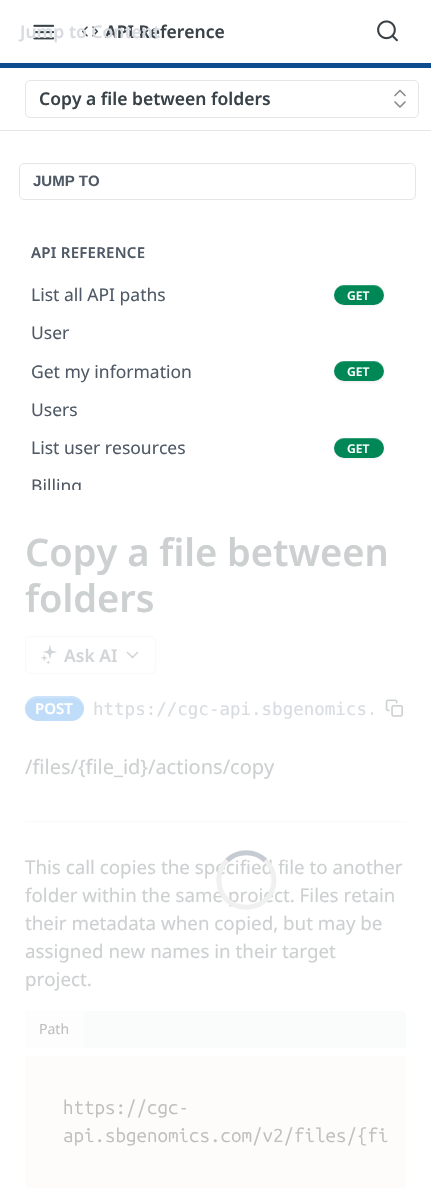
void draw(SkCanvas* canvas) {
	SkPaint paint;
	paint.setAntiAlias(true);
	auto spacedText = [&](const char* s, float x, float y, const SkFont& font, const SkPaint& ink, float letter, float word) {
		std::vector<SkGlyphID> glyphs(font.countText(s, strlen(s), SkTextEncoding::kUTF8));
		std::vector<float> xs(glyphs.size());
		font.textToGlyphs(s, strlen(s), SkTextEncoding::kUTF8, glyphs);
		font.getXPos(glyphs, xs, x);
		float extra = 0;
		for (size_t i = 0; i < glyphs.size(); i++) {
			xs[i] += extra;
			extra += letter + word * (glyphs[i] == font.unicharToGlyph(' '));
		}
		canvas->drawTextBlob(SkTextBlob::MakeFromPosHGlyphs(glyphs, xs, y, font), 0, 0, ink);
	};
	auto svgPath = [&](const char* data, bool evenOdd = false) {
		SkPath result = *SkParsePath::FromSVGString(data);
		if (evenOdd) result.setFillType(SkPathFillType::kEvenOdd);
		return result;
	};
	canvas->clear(0xffffffff);
	paint.setColor(0xffe6e6e6);
	canvas->drawRect(SkRect::MakeXYWH(0, 130, 431, 1), paint);
	paint.setColor(0xff0e4b8f);
	canvas->drawRect(SkRect::MakeXYWH(0, 63, 431, 5), paint);
	canvas->drawImageRect(SkImages::DeferredFromEncodedData(SkData::MakeFromFileName("img1.png")), SkRect::MakeXYWH(33, 24, 22, 16), SkSamplingOptions());
	canvas->drawImageRect(SkImages::DeferredFromEncodedData(SkData::MakeFromFileName("img2.png")), SkRect::MakeXYWH(82, 26, 16, 11), SkSamplingOptions());
	SkFont f1(fontMgr->matchFamilyStyle("Noto Sans", SkFontStyle(600, SkFontStyle::kNormal_Width, SkFontStyle::kUpright_Slant)), 17.5);
	f1.setSubpixel(true);
	paint.setColor(0xff384248);
	canvas->drawString("API Reference", 105, 38, f1, paint);
	paint.setColor(0xffd8dce1);
	canvas->drawString("Jump to Content", 20, 38, f1, paint);
	canvas->drawImageRect(SkImages::DeferredFromEncodedData(SkData::MakeFromFileName("img3.png")), SkRect::MakeXYWH(377, 20, 21, 22), SkSamplingOptions());
	paint.setStroke(true);
	paint.setStrokeWidth(1);
	paint.setColor(0xffe6e6e6);
	canvas->drawRoundRect(SkRect::MakeXYWH(25.5, 80.5, 393, 37), 4.5, 4.5, paint);
	paint.setStroke(false);
	paint.setColor(0xff384248);
	canvas->drawString("Copy a file between folders", 39, 105, f1, paint);
	paint.setStroke(true);
	paint.setStrokeWidth(1.7);
	paint.setStrokeCap(SkPaint::kRound_Cap);
	paint.setStrokeJoin(SkPaint::kRound_Join);
	paint.setColor(0xff888e91);
	canvas->drawPath(svgPath("M395 102L400 107L405 102M405 95.5L400 90.5L395 95.5"), paint);
	paint.setStrokeWidth(1);
	paint.setStrokeCap(SkPaint::kButt_Cap);
	paint.setStrokeJoin(SkPaint::kMiter_Join);
	paint.setColor(0xffe6e6e6);
	canvas->drawRoundRect(SkRect::MakeXYWH(19.5, 163.5, 396, 36), 4.5, 4.5, paint);
	SkFont f2(fontMgr->matchFamilyStyle("Liberation Sans", SkFontStyle::Bold()), 15);
	f2.setSubpixel(true);
	paint.setStroke(false);
	paint.setColor(0xff4f5a66);
	canvas->drawString("JUMP TO", 33, 186, f2, paint);
	SkFont f3(fontMgr->matchFamilyStyle("Noto Sans", SkFontStyle(600, SkFontStyle::kNormal_Width, SkFontStyle::kUpright_Slant)), 15);
	f3.setSubpixel(true);
	spacedText("API REFERENCE", 31, 258, f3, paint, 0.25, 0);
	SkFont f4(fontMgr->matchFamilyStyle("Noto Sans", SkFontStyle::Normal()), 17.5);
	f4.setSubpixel(true);
	canvas->drawString("List all API paths", 31, 301, f4, paint);
	paint.setColor(0x0d000000);
	paint.setMaskFilter(SkMaskFilter::MakeBlur(kNormal_SkBlurStyle, 1));
	canvas->drawRoundRect(SkRect::MakeXYWH(334, 286, 50, 20), 10, 10, paint);
	paint.setMaskFilter(nullptr);
	paint.setColor(0xff008756);
	canvas->drawRoundRect(SkRect::MakeXYWH(334, 285, 50, 20), 10, 10, paint);
	paint.setColor(0x33ffffff);
	canvas->drawPath(svgPath("M344 286H374C379 286 384 291 384 296C385 282 367 285 359 285C351 285 333 282 334 296C334 291 338 286 344 286Z"), paint);
	SkFont f5(fontMgr->matchFamilyStyle("Noto Sans", SkFontStyle(600, SkFontStyle::kNormal_Width, SkFontStyle::kUpright_Slant)), 12);
	f5.setSubpixel(true);
	paint.setColor(0xffffffff);
	canvas->drawString("GET", 347, 300, f5, paint);
	paint.setColor(0xff4f5a66);
	canvas->drawString("User", 31, 339, f4, paint);
	canvas->drawString("Get my information", 31, 378, f4, paint);
	paint.setColor(0x0d000000);
	paint.setMaskFilter(SkMaskFilter::MakeBlur(kNormal_SkBlurStyle, 1));
	canvas->drawRoundRect(SkRect::MakeXYWH(334, 363, 50, 20), 10, 10, paint);
	paint.setMaskFilter(nullptr);
	paint.setColor(0xff008756);
	canvas->drawRoundRect(SkRect::MakeXYWH(334, 361, 50, 20), 10, 10, paint);
	paint.setColor(0x33ffffff);
	canvas->drawPath(svgPath("M344 362H374C379 362 384 367 384 372C385 358 367 361 359 361C351 361 333 358 334 372C334 367 338 362 344 362Z"), paint);
	paint.setColor(0xffffffff);
	canvas->drawString("GET", 347, 376, f5, paint);
	paint.setColor(0xff4f5a66);
	canvas->drawString("Users", 31, 416, f4, paint);
	canvas->drawString("List user resources", 31, 454, f4, paint);
	paint.setColor(0x0d000000);
	paint.setMaskFilter(SkMaskFilter::MakeBlur(kNormal_SkBlurStyle, 1));
	canvas->drawRoundRect(SkRect::MakeXYWH(334, 439, 50, 20), 10, 10, paint);
	paint.setMaskFilter(nullptr);
	paint.setColor(0xff008756);
	canvas->drawRoundRect(SkRect::MakeXYWH(334, 438, 50, 20), 10, 10, paint);
	paint.setColor(0x33ffffff);
	canvas->drawPath(svgPath("M344 439H374C379 439 384 443 384 448C385 435 367 438 359 438C351 438 333 435 334 448C334 443 338 439 344 439Z"), paint);
	paint.setColor(0xffffffff);
	canvas->drawString("GET", 347, 453, f5, paint);
	canvas->save();
	canvas->clipRect(SkRect::MakeXYWH(0, 130, 431, 360));
	paint.setColor(0xff4f5a66);
	canvas->drawString("Billing", 31, 492, f4, paint);
	canvas->restore();
	paint.setColor(0xfff9f9f9);
	canvas->drawRect(SkRect::MakeXYWH(25, 821, 381, 1), paint);
	SkFont f6(fontMgr->matchFamilyStyle("Noto Sans", SkFontStyle(600, SkFontStyle::kNormal_Width, SkFontStyle::kUpright_Slant)), 38);
	f6.setSubpixel(true);
	paint.setColor(0xffcdd0d1);
	canvas->drawString("Copy a file between", 25, 566, f6, paint);
	canvas->drawString("folders", 25, 612, f6, paint);
	paint.setStroke(true);
	paint.setColor(0xfff9f9f9);
	canvas->drawRoundRect(SkRect::MakeXYWH(25.5, 636.5, 130, 37), 4.5, 4.5, paint);
	canvas->drawImageRect(SkImages::DeferredFromEncodedData(SkData::MakeFromFileName("img4.png")), SkRect::MakeXYWH(41, 645, 16, 20), SkSamplingOptions());
	paint.setStroke(false);
	paint.setColor(0xffd3d6d9);
	canvas->drawString("Ask AI", 64, 662, f1, paint);
	paint.setStroke(true);
	paint.setStrokeWidth(1.7);
	paint.setStrokeCap(SkPaint::kRound_Cap);
	paint.setStrokeJoin(SkPaint::kRound_Join);
	canvas->drawPath(svgPath("M127.5 652.5L132.5 657.5L137.5 652.5"), paint);
	paint.setStroke(false);
	paint.setColor(0xffbfdcf8);
	canvas->drawRoundRect(SkRect::MakeXYWH(25, 696, 59, 25), 12.5, 12.5, paint);
	paint.setColor(0x33ffffff);
	canvas->drawPath(svgPath("M38 698H71C78 698 84 703 84 709C85 693 65 696 54 696C44 696 24 693 25 709C25 703 31 698 38 698Z"), paint);
	paint.setColor(0xffffffff);
	canvas->drawString("POST", 35, 714, f3, paint);
	canvas->save();
	canvas->clipRect(SkRect::MakeXYWH(94, 696, 279, 25));
	SkFont f7(fontMgr->matchFamilyStyle("DejaVu Sans Mono", SkFontStyle::Normal()), 17.5);
	f7.setSubpixel(true);
	paint.setColor(0xffd8dce1);
	canvas->drawString("https://cgc-api.sbgenomics.", 93, 715, f7, paint);
	canvas->restore();
	canvas->drawImageRect(SkImages::DeferredFromEncodedData(SkData::MakeFromFileName("img5.png")), SkRect::MakeXYWH(385, 699, 18, 18), SkSamplingOptions());
	SkFont f8(fontMgr->matchFamilyStyle("Noto Sans", SkFontStyle::Normal()), 20);
	f8.setSubpixel(true);
	paint.setColor(0xffcdd0d1);
	canvas->drawString("/files/{file_id}/actions/copy", 25, 774, f8, paint);
	SkFont f9(fontMgr->matchFamilyStyle("Noto Sans", SkFontStyle::Normal()), 18.75);
	f9.setSubpixel(true);
	canvas->drawString("This call copies the specified file to another", 25, 874, f9, paint);
	paint.setStroke(true);
	paint.setStrokeWidth(5);
	paint.setStrokeCap(SkPaint::kButt_Cap);
	paint.setStrokeJoin(SkPaint::kMiter_Join);
	paint.setColor(0xffc6cbd3);
	canvas->drawPath(svgPath("M227 860.5C237.5 850 255 850 265.5 860.5"), paint);
	paint.setStroke(false);
	paint.setColor(0xffcdd0d1);
	canvas->drawString("folder within the same project. Files retain", 25, 902, f9, paint);
	paint.setStroke(true);
	paint.setColor(0xfff0f0f0);
	canvas->drawPath(svgPath("M265.5 860.5C271 865.5 274 873 274 880C274 913 225.5 917.5 219.5 885.5C217.5 876.5 220.5 867 227 860.5"), paint);
	paint.setStroke(false);
	paint.setColor(0xffcdd0d1);
	canvas->drawString("their metadata when copied, but may be", 25, 930, f9, paint);
	canvas->drawString("assigned new names in their target", 25, 958, f9, paint);
	canvas->drawString("project.", 25, 986, f9, paint);
	paint.setColor(0xfffafbfb);
	canvas->drawPath(svgPath("M29 1011H402C404 1011 406 1013 406 1015V1048H25V1015C25 1013 27 1011 29 1011Z"), paint);
	paint.setColor(0xfffdfdfe);
	canvas->drawPath(svgPath("M29 1011H84V1048H25V1015C25 1013 27 1011 29 1011Z"), paint);
	SkFont f10(fontMgr->matchFamilyStyle("Noto Sans", SkFontStyle::Normal()), 14);
	f10.setSubpixel(true);
	paint.setColor(0xffbfbfbf);
	canvas->drawString("Path", 39, 1034, f10, paint);
	paint.setColor(0xfffdfcfb);
	canvas->drawPath(svgPath("M25 1056H406V1184C406 1186 404 1188 402 1188H29C27 1188 25 1186 25 1184Z"), paint);
	SkFont f11(fontMgr->matchFamilyStyle("Ubuntu Mono", SkFontStyle::Normal()), 18.75);
	f11.setSubpixel(true);
	paint.setColor(0xffbfbfbf);
	canvas->drawString("https://cgc-", 63, 1114, f11, paint);
	canvas->drawString("api.sbgenomics.com/v2/files/{fi", 63, 1142, f11, paint);
}
